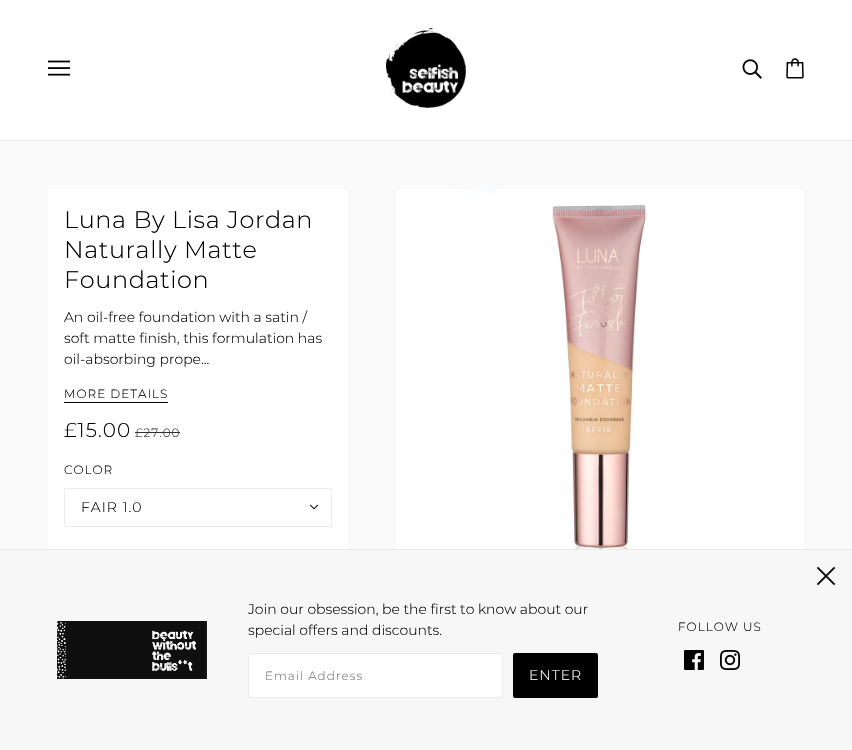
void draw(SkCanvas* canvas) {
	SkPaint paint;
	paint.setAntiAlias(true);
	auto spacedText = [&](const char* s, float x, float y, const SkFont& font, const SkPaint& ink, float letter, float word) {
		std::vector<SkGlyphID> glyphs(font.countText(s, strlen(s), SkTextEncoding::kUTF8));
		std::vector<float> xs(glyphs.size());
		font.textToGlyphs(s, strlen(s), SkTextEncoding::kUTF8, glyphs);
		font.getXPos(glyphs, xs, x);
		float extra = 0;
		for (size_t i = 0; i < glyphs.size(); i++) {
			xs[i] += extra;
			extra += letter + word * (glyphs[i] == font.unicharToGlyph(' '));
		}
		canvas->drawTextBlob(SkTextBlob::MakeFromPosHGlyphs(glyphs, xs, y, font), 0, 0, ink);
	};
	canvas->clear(0xffffffff);
	paint.setColor(0xffeaeaea);
	canvas->drawRect(SkRect::MakeXYWH(0, 140, 852, 1), paint);
	canvas->drawImageRect(SkImages::DeferredFromEncodedData(SkData::MakeFromFileName("img1.png")), SkRect::MakeXYWH(48, 60, 22, 16), SkSamplingOptions());
	canvas->drawImageRect(SkImages::DeferredFromEncodedData(SkData::MakeFromFileName("img2.png")), SkRect::MakeXYWH(386, 28, 80, 80), SkSamplingOptions());
	canvas->drawImageRect(SkImages::DeferredFromEncodedData(SkData::MakeFromFileName("img3.png")), SkRect::MakeXYWH(742, 59, 20, 20), SkSamplingOptions());
	canvas->drawImageRect(SkImages::DeferredFromEncodedData(SkData::MakeFromFileName("img4.png")), SkRect::MakeXYWH(786, 58, 18, 21), SkSamplingOptions());
	paint.setColor(0xfffafafa);
	canvas->drawRect(SkRect::MakeXYWH(0, 141, 852, 408), paint);
	paint.setColor(0xffffffff);
	canvas->drawRect(SkRect::MakeXYWH(48, 189, 300, 360), paint);
	SkFont f1(fontMgr->matchFamilyStyle("Montserrat", SkFontStyle(300, SkFontStyle::kNormal_Width, SkFontStyle::kUpright_Slant)), 24);
	f1.setSubpixel(true);
	paint.setColor(0xff000000);
	spacedText("Luna By Lisa Jordan", 64, 228, f1, paint, 0.6, 0);
	spacedText("Naturally Matte", 64, 258, f1, paint, 0.6, 0);
	spacedText("Foundation", 64, 288, f1, paint, 0.6, 0);
	SkFont f2(fontMgr->matchFamilyStyle("Montserrat", SkFontStyle(300, SkFontStyle::kNormal_Width, SkFontStyle::kUpright_Slant)), 14);
	f2.setSubpixel(true);
	canvas->drawString("An oil-free foundation with a satin /", 64, 322, f2, paint);
	canvas->drawString("soft matte finish, this formulation has", 64, 343, f2, paint);
	canvas->drawString("oil-absorbing prope...", 64, 364, f2, paint);
	SkFont f3(fontMgr->matchFamilyStyle("Montserrat", SkFontStyle(300, SkFontStyle::kNormal_Width, SkFontStyle::kUpright_Slant)), 12);
	f3.setSubpixel(true);
	spacedText("MORE DETAILS", 64, 398, f3, paint, 1, 0);
	canvas->drawRect(SkRect::MakeXYWH(64, 402, 104, 1), paint);
	SkFont f4(fontMgr->matchFamilyStyle("Montserrat", SkFontStyle(300, SkFontStyle::kNormal_Width, SkFontStyle::kUpright_Slant)), 20);
	f4.setSubpixel(true);
	spacedText("£15.00", 64, 437, f4, paint, 1, 0);
	paint.setColor(0xff303030);
	spacedText("£27.00", 135, 437, f3, paint, 1, 0);
	canvas->drawRect(SkRect::MakeXYWH(135, 432, 45, 1), paint);
	paint.setColor(0xff000000);
	spacedText("COLOR", 64, 474, f3, paint, 1, 0);
	paint.setStroke(true);
	paint.setStrokeWidth(1);
	paint.setColor(0xffeaeaea);
	canvas->drawRoundRect(SkRect::MakeXYWH(64.5, 488.5, 267, 38), 1.5, 1.5, paint);
	paint.setStroke(false);
	paint.setColor(0xff000000);
	spacedText("FAIR 1.0", 81, 512, f2, paint, 1, 0);
	canvas->drawImageRect(SkImages::DeferredFromEncodedData(SkData::MakeFromFileName("img5.png")), SkRect::MakeXYWH(309, 504, 10, 6), SkSamplingOptions());
	canvas->drawImageRect(SkImages::DeferredFromEncodedData(SkData::MakeFromFileName("img6.png")), SkRect::MakeXYWH(396, 189, 408, 360), SkSamplingOptions());
	paint.setColor(0xfff7f7f7);
	canvas->drawRect(SkRect::MakeXYWH(0, 550, 852, 200), paint);
	paint.setColor(0xffeaeaea);
	canvas->drawRect(SkRect::MakeXYWH(0, 549, 852, 1), paint);
	canvas->drawImageRect(SkImages::DeferredFromEncodedData(SkData::MakeFromFileName("img7.png")), SkRect::MakeXYWH(816, 566, 20, 20), SkSamplingOptions());
	canvas->drawImageRect(SkImages::DeferredFromEncodedData(SkData::MakeFromFileName("img8.png")), SkRect::MakeXYWH(57, 621, 150, 58), SkSamplingOptions());
	paint.setColor(0xff000000);
	canvas->drawString("Join our obsession, be the first to know about our", 248, 614, f2, paint);
	canvas->drawString("special offers and discounts.", 248, 635, f2, paint);
	paint.setColor(0xffffffff);
	canvas->drawRoundRect(SkRect::MakeXYWH(248.5, 653.5, 254, 44), 1.5, 1.5, paint);
	paint.setStroke(true);
	paint.setColor(0xffeaeaea);
	canvas->drawRoundRect(SkRect::MakeXYWH(248.5, 653.5, 254, 44), 1.5, 1.5, paint);
	paint.setStroke(false);
	paint.setColor(0xff757575);
	spacedText("Email Address", 265, 680, f3, paint, 1, 0);
	paint.setColor(0xff000000);
	canvas->drawRoundRect(SkRect::MakeXYWH(513, 653, 85, 45), 2, 2, paint);
	paint.setColor(0xffffffff);
	spacedText("ENTER", 529, 680, f2, paint, 1, 0);
	paint.setColor(0xff000000);
	spacedText("FOLLOW US", 678, 631, f3, paint, 1, 0);
	canvas->drawImageRect(SkImages::DeferredFromEncodedData(SkData::MakeFromFileName("img9.png")), SkRect::MakeXYWH(684, 650, 20, 20), SkSamplingOptions());
	canvas->drawImageRect(SkImages::DeferredFromEncodedData(SkData::MakeFromFileName("img10.png")), SkRect::MakeXYWH(720, 650, 20, 20), SkSamplingOptions());
}
